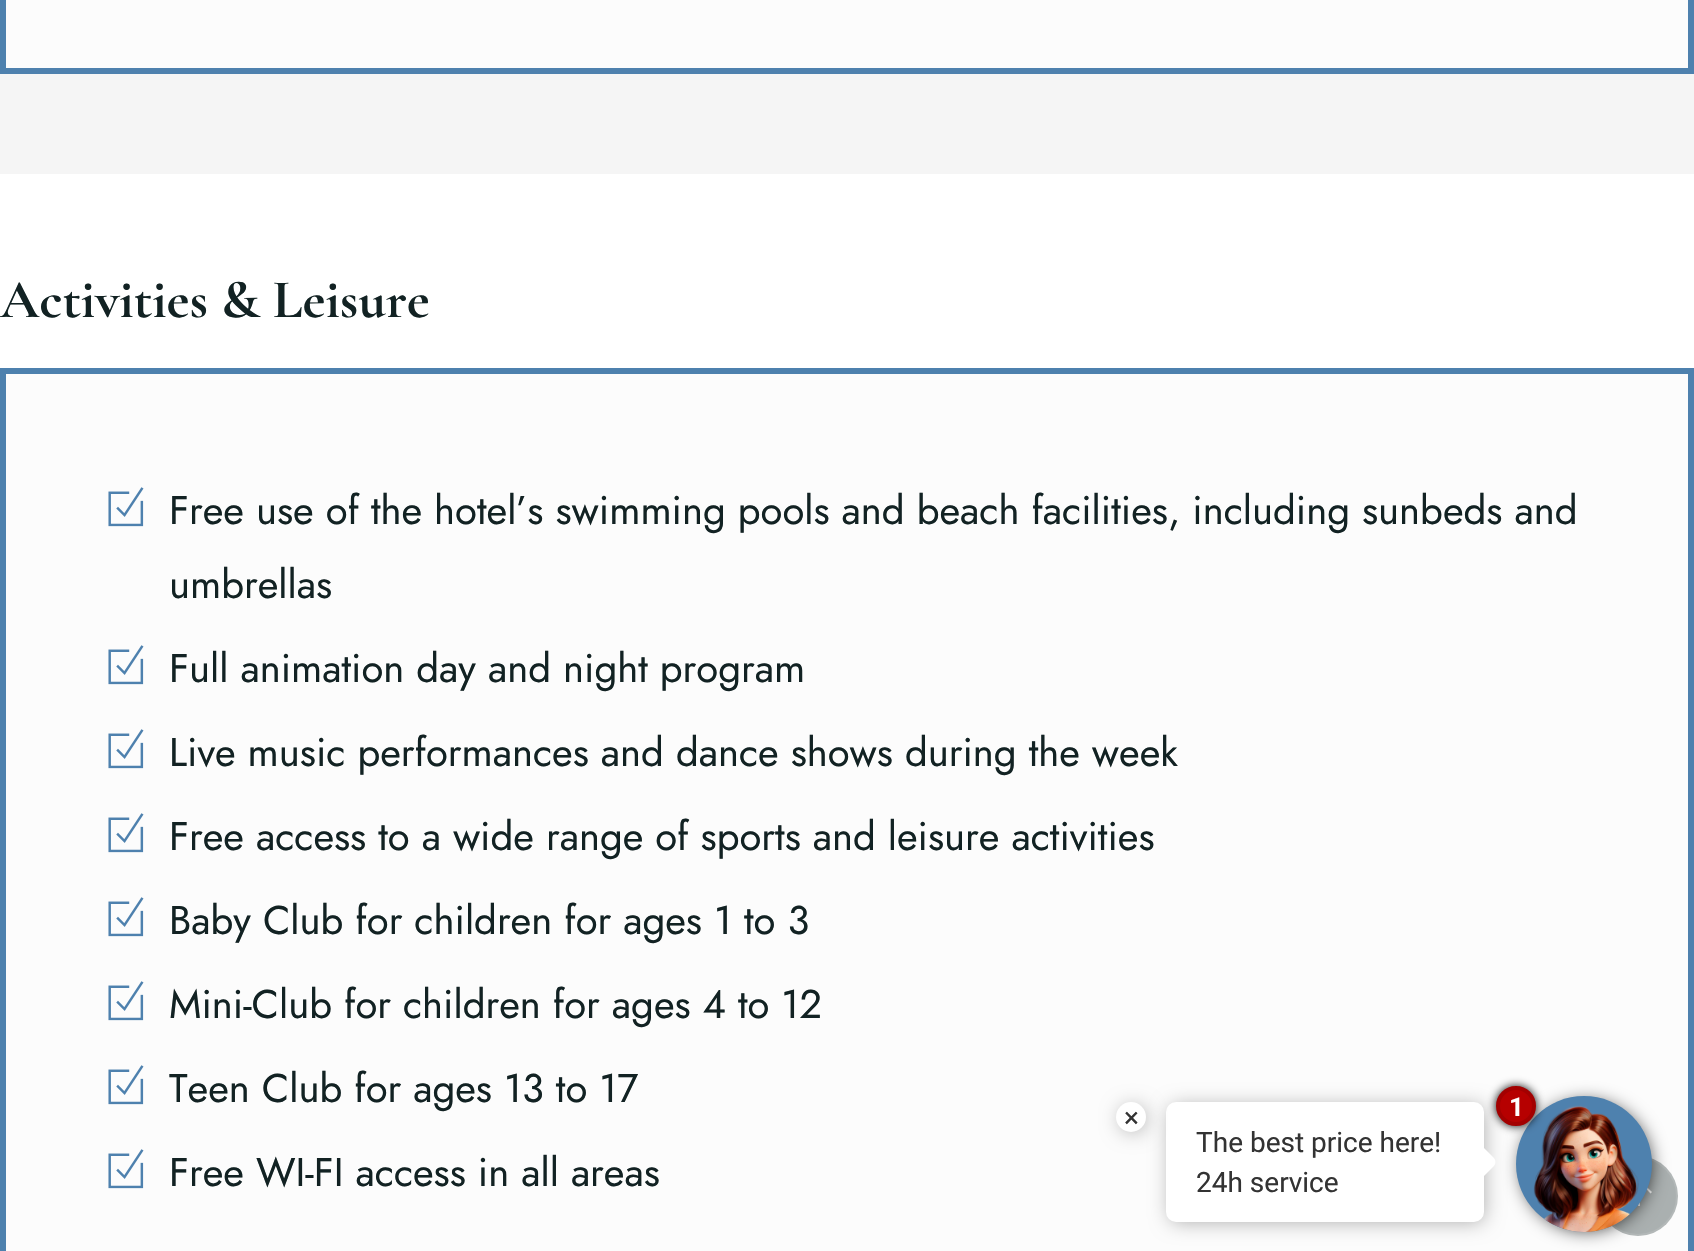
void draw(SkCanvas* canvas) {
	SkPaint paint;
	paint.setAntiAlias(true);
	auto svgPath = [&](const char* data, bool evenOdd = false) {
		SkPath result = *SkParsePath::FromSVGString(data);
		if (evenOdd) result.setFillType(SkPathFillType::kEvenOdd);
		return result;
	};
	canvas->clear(0xffffffff);
	paint.setColor(0xfff5f5f5);
	canvas->drawRect(SkRect::MakeXYWH(0, 74, 1694, 100), paint);
	paint.setColor(0xfffcfcfc);
	canvas->drawRect(SkRect::MakeXYWH(3, -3, 1688, 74), paint);
	paint.setStroke(true);
	paint.setStrokeWidth(6);
	paint.setColor(0xff4e81ae);
	canvas->drawRect(SkRect::MakeXYWH(3, -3, 1688, 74), paint);
	SkFont f1(fontMgr->matchFamilyStyle("Cormorant Garamond", SkFontStyle::Bold()), 54.75);
	f1.setSubpixel(true);
	paint.setStroke(false);
	paint.setColor(0xff122223);
	canvas->drawString("Activities & Leisure", 0, 317, f1, paint);
	paint.setColor(0xfffcfcfc);
	canvas->drawRect(SkRect::MakeXYWH(3, 371, 1688, 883), paint);
	paint.setStroke(true);
	paint.setColor(0xff4e81ae);
	canvas->drawRect(SkRect::MakeXYWH(3, 371, 1688, 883), paint);
	canvas->drawImageRect(SkImages::DeferredFromEncodedData(SkData::MakeFromFileName("img1.png")), SkRect::MakeXYWH(108, 487, 36, 40), SkSamplingOptions());
	SkFont f2(fontMgr->matchFamilyStyle("Jost", SkFontStyle::Normal()), 40);
	f2.setSubpixel(true);
	paint.setStroke(false);
	paint.setColor(0xff122223);
	canvas->drawString("Free use of the hotel’s swimming pools and beach facilities, including sunbeds and", 169, 524, f2, paint);
	canvas->drawString("umbrellas", 169, 598, f2, paint);
	canvas->drawImageRect(SkImages::DeferredFromEncodedData(SkData::MakeFromFileName("img1.png")), SkRect::MakeXYWH(108, 645, 36, 40), SkSamplingOptions());
	canvas->drawString("Full animation day and night program", 169, 682, f2, paint);
	canvas->drawImageRect(SkImages::DeferredFromEncodedData(SkData::MakeFromFileName("img1.png")), SkRect::MakeXYWH(108, 729, 36, 40), SkSamplingOptions());
	canvas->drawString("Live music performances and dance shows during the week", 169, 766, f2, paint);
	canvas->drawImageRect(SkImages::DeferredFromEncodedData(SkData::MakeFromFileName("img1.png")), SkRect::MakeXYWH(108, 813, 36, 40), SkSamplingOptions());
	canvas->drawString("Free access to a wide range of sports and leisure activities", 169, 850, f2, paint);
	canvas->drawImageRect(SkImages::DeferredFromEncodedData(SkData::MakeFromFileName("img1.png")), SkRect::MakeXYWH(108, 897, 36, 40), SkSamplingOptions());
	canvas->drawString("Baby Club for children for ages 1 to 3", 169, 934, f2, paint);
	canvas->drawImageRect(SkImages::DeferredFromEncodedData(SkData::MakeFromFileName("img1.png")), SkRect::MakeXYWH(108, 981, 36, 40), SkSamplingOptions());
	canvas->drawString("Mini-Club for children for ages 4 to 12", 169, 1018, f2, paint);
	canvas->drawImageRect(SkImages::DeferredFromEncodedData(SkData::MakeFromFileName("img1.png")), SkRect::MakeXYWH(108, 1065, 36, 40), SkSamplingOptions());
	canvas->drawString("Teen Club for ages 13 to 17", 169, 1102, f2, paint);
	canvas->drawImageRect(SkImages::DeferredFromEncodedData(SkData::MakeFromFileName("img1.png")), SkRect::MakeXYWH(108, 1149, 36, 40), SkSamplingOptions());
	canvas->drawString("Free WI-FI access in all areas", 169, 1186, f2, paint);
	paint.setColor(0xffaab0b0);
	canvas->drawCircle(1638, 1196, 40, paint);
	paint.setStroke(true);
	paint.setStrokeWidth(2);
	paint.setColor(0x1afefefe);
	canvas->drawCircle(1638, 1196, 39, paint);
	paint.setStroke(false);
	paint.setColor(0xfffefefe);
	canvas->drawPath(svgPath("M1650.5 1193.5L1640 1182.5V1206H1638V1182.5L1627.5 1193.5L1626 1192L1639 1179.5L1652 1192Z"), paint);
	paint.setColor(0xffaaaaaa);
	paint.setMaskFilter(SkMaskFilter::MakeBlur(kNormal_SkBlurStyle, 10));
	canvas->drawRoundRect(SkRect::MakeXYWH(1170, 1106, 314, 116), 8, 8, paint);
	paint.setMaskFilter(nullptr);
	paint.setColor(0xffffffff);
	canvas->drawRoundRect(SkRect::MakeXYWH(1166, 1102, 318, 120), 10, 10, paint);
	canvas->drawPath(svgPath("M1484 1148L1494 1158C1496 1160 1496 1164 1494 1166L1484 1176L1470 1162Z"), paint);
	paint.setColor(0xff000000);
	paint.setMaskFilter(SkMaskFilter::MakeBlur(kNormal_SkBlurStyle, 10));
	canvas->drawRoundRect(SkRect::MakeXYWH(1524, 1104, 124, 124), 62, 62, paint);
	paint.setMaskFilter(nullptr);
	paint.setColor(0xff4e81ae);
	canvas->drawCircle(1584, 1164, 68, paint);
	canvas->drawImageRect(SkImages::DeferredFromEncodedData(SkData::MakeFromFileName("img2.png")), SkRect::MakeXYWH(1533, 1105, 106, 127), SkSamplingOptions());
	paint.setColor(0xff000000);
	paint.setMaskFilter(SkMaskFilter::MakeBlur(kNormal_SkBlurStyle, 5));
	canvas->drawRoundRect(SkRect::MakeXYWH(1496, 1086, 40, 40), 20, 20, paint);
	paint.setMaskFilter(nullptr);
	paint.setColor(0xffb60000);
	canvas->drawCircle(1516, 1106, 18, paint);
	paint.setStroke(true);
	paint.setStrokeWidth(4);
	paint.setColor(0xffa30000);
	canvas->drawCircle(1516, 1106, 18, paint);
	SkFont f3(fontMgr->matchFamilyStyle("Roboto", SkFontStyle::Bold()), 26);
	f3.setSubpixel(true);
	paint.setStroke(false);
	paint.setColor(0xffffffff);
	canvas->drawString("1", 1509, 1116, f3, paint);
	paint.setColor(0xffaaaaaa);
	paint.setMaskFilter(SkMaskFilter::MakeBlur(kNormal_SkBlurStyle, 10));
	canvas->drawRoundRect(SkRect::MakeXYWH(1120, 1106, 26, 26), 13, 13, paint);
	paint.setMaskFilter(nullptr);
	paint.setColor(0xffffffff);
	canvas->drawCircle(1131, 1117, 15, paint);
	SkFont f4(fontMgr->matchFamilyStyle("Roboto", SkFontStyle::Normal()), 28);
	f4.setSubpixel(true);
	paint.setColor(0xff333333);
	canvas->drawString("×", 1124, 1127, f4, paint);
	canvas->drawString("The best price here!", 1196, 1152, f4, paint);
	canvas->drawString("24h service", 1196, 1192, f4, paint);
}
